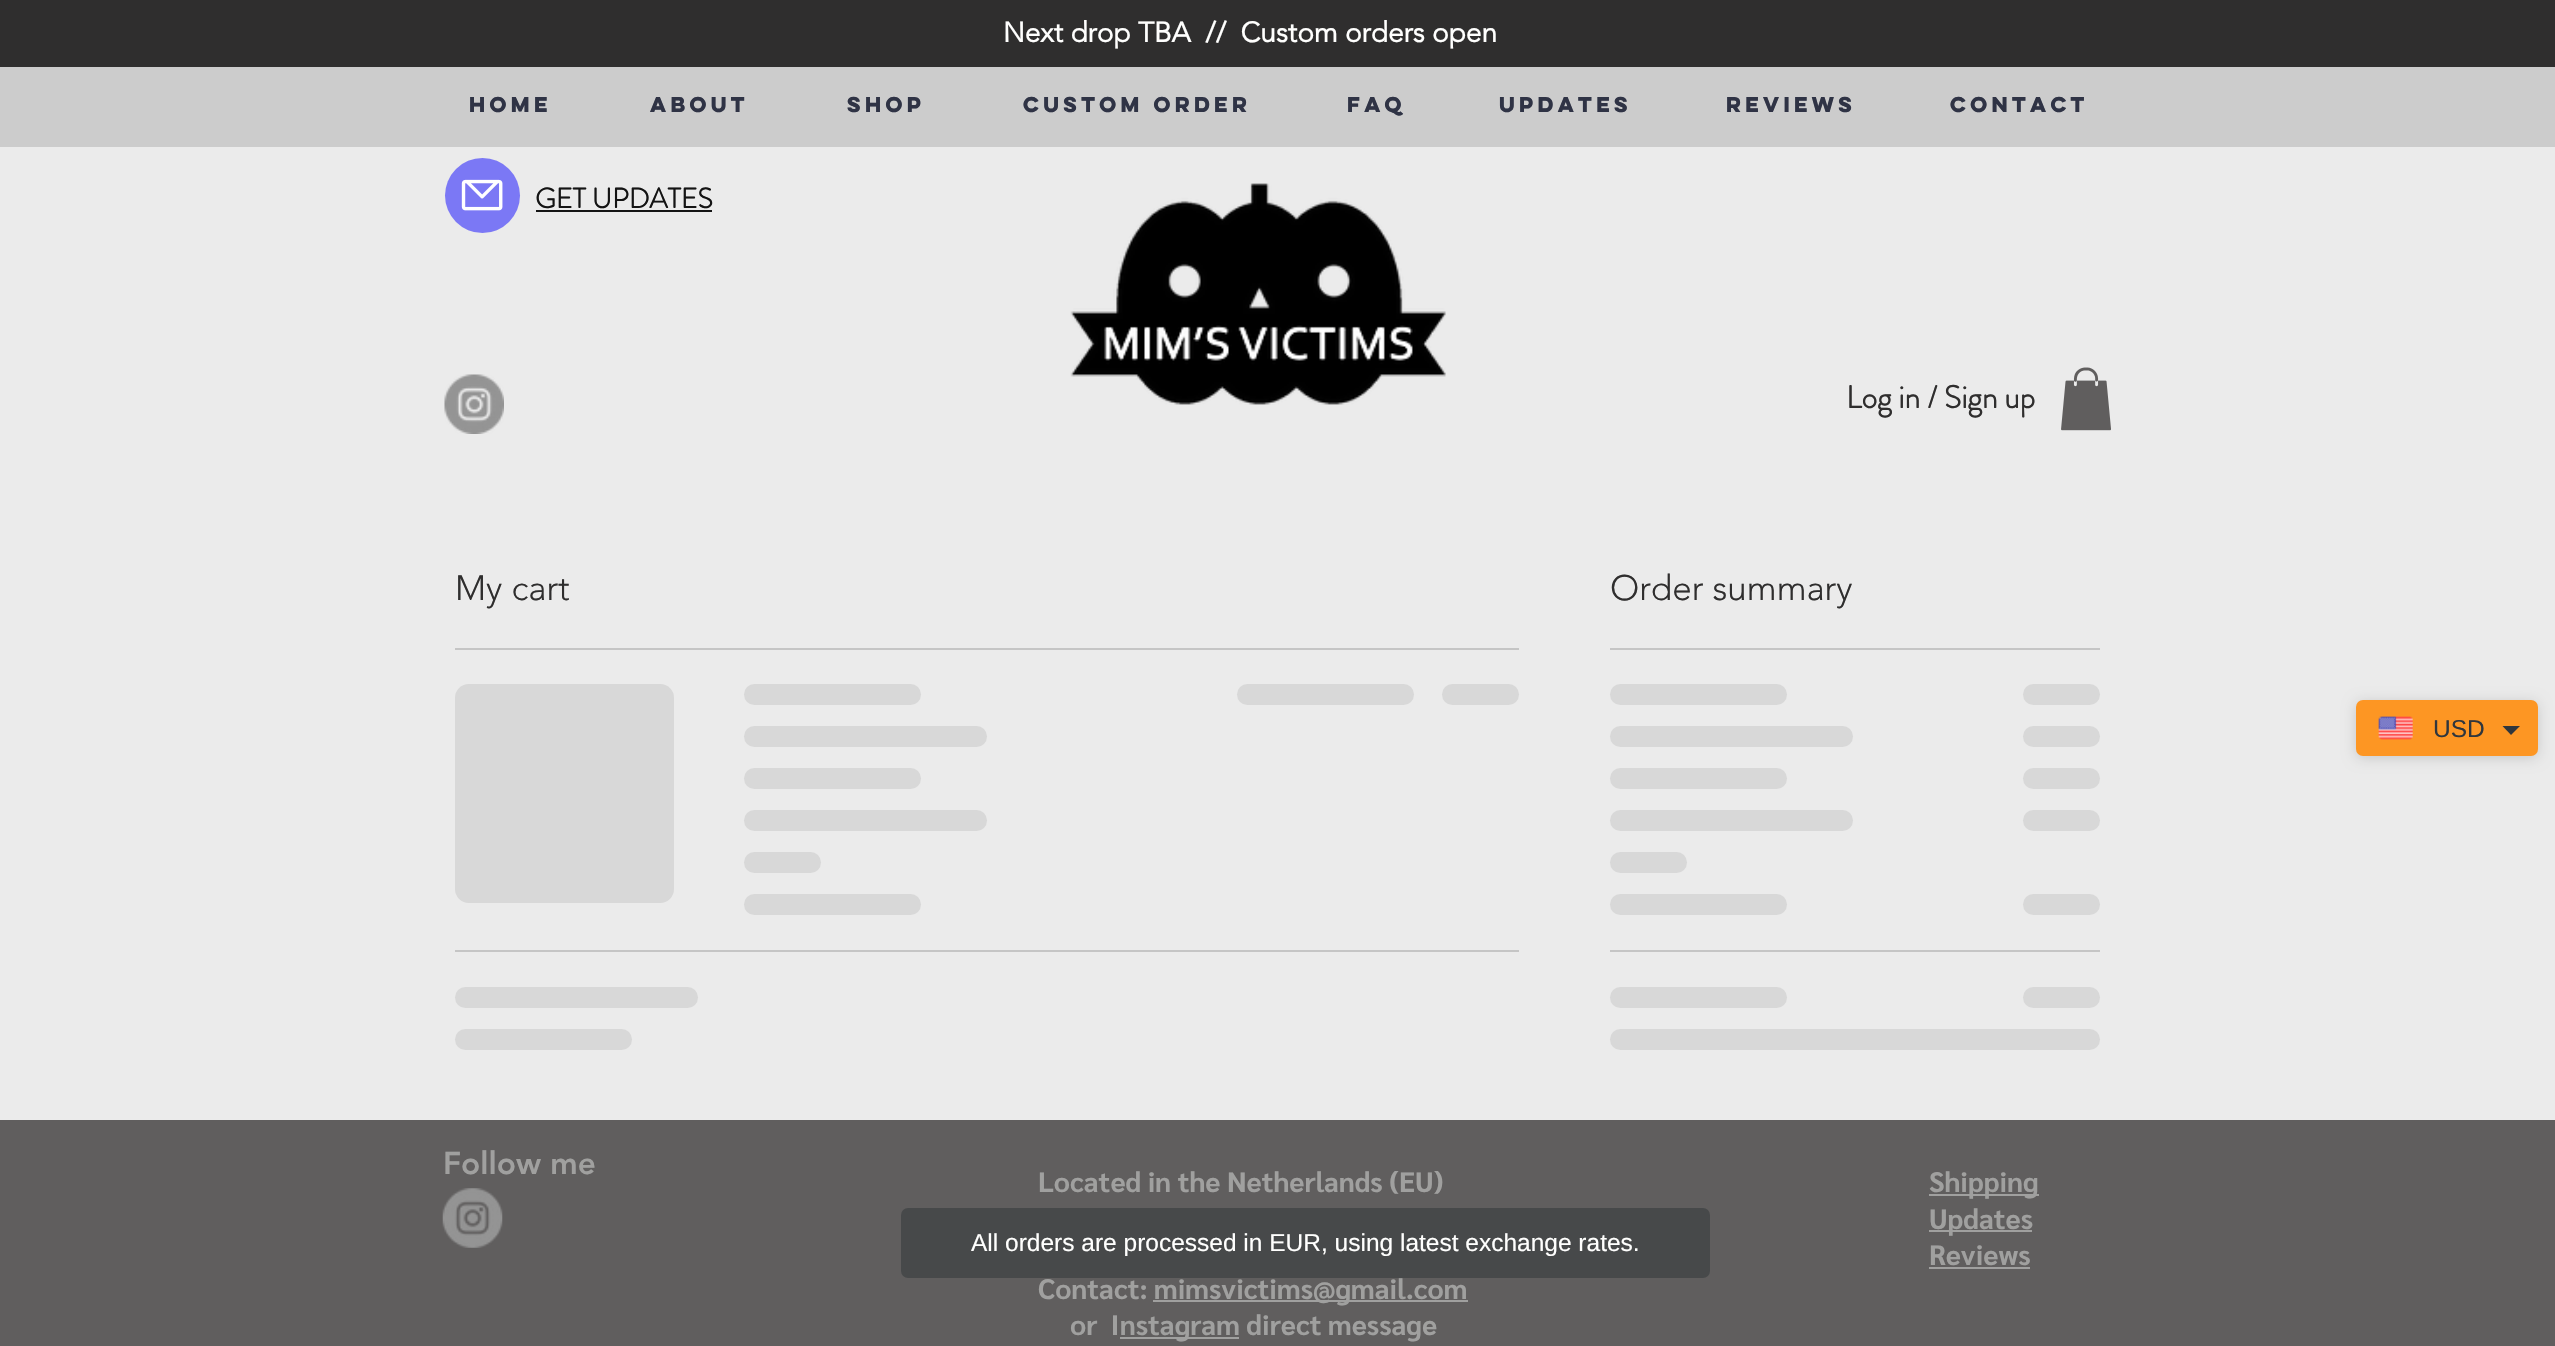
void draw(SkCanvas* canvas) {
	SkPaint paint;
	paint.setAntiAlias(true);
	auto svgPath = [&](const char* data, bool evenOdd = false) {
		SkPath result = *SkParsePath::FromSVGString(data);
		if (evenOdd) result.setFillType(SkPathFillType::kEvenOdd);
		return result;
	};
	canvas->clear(0xffebebeb);
	paint.setColor(0xff2f2e2e);
	canvas->drawRect(SkRect::MakeXYWH(0, 0, 2555, 67), paint);
	SkFont f1(fontMgr->matchFamilyStyle("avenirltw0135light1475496", SkFontStyle::Bold()), 28);
	f1.setSubpixel(true);
	paint.setColor(0xfffffffe);
	canvas->drawString("Next drop TBA  //  Custom orders open", 1003, 42, f1, paint);
	paint.setColor(0xffcccccc);
	canvas->drawRect(SkRect::MakeXYWH(0, 67, 2555, 80), paint);
	SkFont f2(fontMgr->matchFamilyStyle("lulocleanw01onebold", SkFontStyle::Bold()), 19.25);
	f2.setSubpixel(true);
	paint.setColor(0xff2f3345);
	canvas->drawString("HOME", 469, 112, f2, paint);
	canvas->drawString("ABOUT", 650, 112, f2, paint);
	canvas->drawString("SHOP", 847, 112, f2, paint);
	canvas->drawString("CUSTOM ORDER", 1023, 112, f2, paint);
	canvas->drawString("FAQ", 1347, 112, f2, paint);
	canvas->drawString("UPDATES", 1499, 112, f2, paint);
	canvas->drawString("REVIEWS", 1726, 112, f2, paint);
	canvas->drawString("CONTACT", 1950, 112, f2, paint);
	paint.setColor(0xff7b78f5);
	canvas->drawCircle(482.5, 195.5, 37.5, paint);
	canvas->drawImageRect(SkImages::DeferredFromEncodedData(SkData::MakeFromFileName("img1.png")), SkRect::MakeXYWH(461, 179, 42, 32), SkSamplingOptions());
	SkFont f3(fontMgr->matchFamilyStyle("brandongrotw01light", SkFontStyle::Bold()), 28);
	f3.setSubpixel(true);
	paint.setColor(0xff141414);
	canvas->drawString("GET UPDATES", 535, 208, f3, paint);
	canvas->drawRect(SkRect::MakeXYWH(536, 210, 176, 2), paint);
	canvas->drawImageRect(SkImages::DeferredFromEncodedData(SkData::MakeFromFileName("img2.png")), SkRect::MakeXYWH(1070, 183, 376, 222), SkSamplingOptions());
	canvas->drawImageRect(SkImages::DeferredFromEncodedData(SkData::MakeFromFileName("img3.png")), SkRect::MakeXYWH(444, 374, 60, 60), SkSamplingOptions());
	SkFont f4(fontMgr->matchFamilyStyle("brandongrotw01light", SkFontStyle::Bold()), 31.5);
	f4.setSubpixel(true);
	paint.setColor(0xff2f2e2e);
	canvas->drawString("Log in / Sign up", 1846, 408, f4, paint);
	canvas->drawImageRect(SkImages::DeferredFromEncodedData(SkData::MakeFromFileName("img4.png")), SkRect::MakeXYWH(2061, 367, 50, 64), SkSamplingOptions());
	paint.setColor(0xffc5c5c5);
	canvas->drawRect(SkRect::MakeXYWH(455, 648, 1064, 2), paint);
	SkFont f5(fontMgr->matchFamilyStyle("avenirltw0135light1475496", SkFontStyle(300, SkFontStyle::kNormal_Width, SkFontStyle::kUpright_Slant)), 35);
	f5.setSubpixel(true);
	paint.setColor(0xff2f2e2e);
	canvas->drawString("My cart", 455, 600, f5, paint);
	{
		const SkColor colors[] = {0xffd8d8d8, 0xffc5c5c5, 0xffd8d8d8};
		const float stops[] = {0.25, 0.37, 0.63};
		const SkPoint ends[] = {{455, 794}, {1330, 794}};
		paint.setShader(SkGradientShader::MakeLinear(ends, colors, stops, 3, SkTileMode::kClamp));
		paint.setAlpha(255);
	}
	canvas->drawRoundRect(SkRect::MakeXYWH(455, 684, 219, 219), 14, 14, paint);
	{
		const SkColor colors[] = {0xffd8d8d8, 0xffc5c5c5, 0xffd8d8d8};
		const float stops[] = {0.25, 0.37, 0.63};
		const SkPoint ends[] = {{744, 695}, {1451, 695}};
		paint.setShader(SkGradientShader::MakeLinear(ends, colors, stops, 3, SkTileMode::kClamp));
		paint.setAlpha(255);
	}
	canvas->drawRoundRect(SkRect::MakeXYWH(744, 684, 177, 21), 10.5, 10.5, paint);
	{
		const SkColor colors[] = {0xffd8d8d8, 0xffc5c5c5, 0xffd8d8d8};
		const float stops[] = {0.25, 0.37, 0.63};
		const SkPoint ends[] = {{744, 737}, {1717, 737}};
		paint.setShader(SkGradientShader::MakeLinear(ends, colors, stops, 3, SkTileMode::kClamp));
		paint.setAlpha(255);
	}
	canvas->drawRoundRect(SkRect::MakeXYWH(744, 726, 243, 21), 10.5, 10.5, paint);
	{
		const SkColor colors[] = {0xffd8d8d8, 0xffc5c5c5, 0xffd8d8d8};
		const float stops[] = {0.25, 0.37, 0.63};
		const SkPoint ends[] = {{744, 779}, {1451, 779}};
		paint.setShader(SkGradientShader::MakeLinear(ends, colors, stops, 3, SkTileMode::kClamp));
		paint.setAlpha(255);
	}
	canvas->drawRoundRect(SkRect::MakeXYWH(744, 768, 177, 21), 10.5, 10.5, paint);
	{
		const SkColor colors[] = {0xffd8d8d8, 0xffc5c5c5, 0xffd8d8d8};
		const float stops[] = {0.25, 0.37, 0.63};
		const SkPoint ends[] = {{744, 821}, {1717, 821}};
		paint.setShader(SkGradientShader::MakeLinear(ends, colors, stops, 3, SkTileMode::kClamp));
		paint.setAlpha(255);
	}
	canvas->drawRoundRect(SkRect::MakeXYWH(744, 810, 243, 21), 10.5, 10.5, paint);
	{
		const SkColor colors[] = {0xffd8d8d8, 0xffc5c5c5, 0xffd8d8d8};
		const float stops[] = {0.25, 0.37, 0.63};
		const SkPoint ends[] = {{744, 863}, {1052, 863}};
		paint.setShader(SkGradientShader::MakeLinear(ends, colors, stops, 3, SkTileMode::kClamp));
		paint.setAlpha(255);
	}
	canvas->drawRoundRect(SkRect::MakeXYWH(744, 852, 77, 21), 10.5, 10.5, paint);
	{
		const SkColor colors[] = {0xffd8d8d8, 0xffc5c5c5, 0xffd8d8d8};
		const float stops[] = {0.25, 0.37, 0.63};
		const SkPoint ends[] = {{744, 905}, {1451, 905}};
		paint.setShader(SkGradientShader::MakeLinear(ends, colors, stops, 3, SkTileMode::kClamp));
		paint.setAlpha(255);
	}
	canvas->drawRoundRect(SkRect::MakeXYWH(744, 894, 177, 21), 10.5, 10.5, paint);
	{
		const SkColor colors[] = {0xffd8d8d8, 0xffc5c5c5, 0xffd8d8d8};
		const float stops[] = {0.25, 0.37, 0.63};
		const SkPoint ends[] = {{1237, 695}, {1944, 695}};
		paint.setShader(SkGradientShader::MakeLinear(ends, colors, stops, 3, SkTileMode::kClamp));
		paint.setAlpha(255);
	}
	canvas->drawRoundRect(SkRect::MakeXYWH(1237, 684, 177, 21), 10.5, 10.5, paint);
	{
		const SkColor colors[] = {0xffd8d8d8, 0xffc5c5c5, 0xffd8d8d8};
		const float stops[] = {0.25, 0.37, 0.63};
		const SkPoint ends[] = {{1442, 695}, {1750, 695}};
		paint.setShader(SkGradientShader::MakeLinear(ends, colors, stops, 3, SkTileMode::kClamp));
		paint.setAlpha(255);
	}
	canvas->drawRoundRect(SkRect::MakeXYWH(1442, 684, 77, 21), 10.5, 10.5, paint);
	paint.setShader(nullptr);
	paint.setColor(0xffc5c5c5);
	canvas->drawRect(SkRect::MakeXYWH(455, 950, 1064, 2), paint);
	{
		const SkColor colors[] = {0xffd8d8d8, 0xffc5c5c5, 0xffd8d8d8};
		const float stops[] = {0.25, 0.37, 0.63};
		const SkPoint ends[] = {{455, 998}, {1428, 998}};
		paint.setShader(SkGradientShader::MakeLinear(ends, colors, stops, 3, SkTileMode::kClamp));
		paint.setAlpha(255);
	}
	canvas->drawRoundRect(SkRect::MakeXYWH(455, 987, 243, 21), 10.5, 10.5, paint);
	{
		const SkColor colors[] = {0xffd8d8d8, 0xffc5c5c5, 0xffd8d8d8};
		const float stops[] = {0.25, 0.37, 0.63};
		const SkPoint ends[] = {{455, 1040}, {1162, 1040}};
		paint.setShader(SkGradientShader::MakeLinear(ends, colors, stops, 3, SkTileMode::kClamp));
		paint.setAlpha(255);
	}
	canvas->drawRoundRect(SkRect::MakeXYWH(455, 1029, 177, 21), 10.5, 10.5, paint);
	paint.setShader(nullptr);
	paint.setColor(0xffc5c5c5);
	canvas->drawRect(SkRect::MakeXYWH(1610, 648, 490, 2), paint);
	paint.setColor(0xff2f2e2e);
	canvas->drawString("Order summary", 1610, 600, f5, paint);
	{
		const SkColor colors[] = {0xffd8d8d8, 0xffc5c5c5, 0xffd8d8d8};
		const float stops[] = {0.25, 0.37, 0.63};
		const SkPoint ends[] = {{1610, 695}, {2317, 695}};
		paint.setShader(SkGradientShader::MakeLinear(ends, colors, stops, 3, SkTileMode::kClamp));
		paint.setAlpha(255);
	}
	canvas->drawRoundRect(SkRect::MakeXYWH(1610, 684, 177, 21), 10.5, 10.5, paint);
	{
		const SkColor colors[] = {0xffd8d8d8, 0xffc5c5c5, 0xffd8d8d8};
		const float stops[] = {0.25, 0.37, 0.63};
		const SkPoint ends[] = {{2023, 695}, {2331, 695}};
		paint.setShader(SkGradientShader::MakeLinear(ends, colors, stops, 3, SkTileMode::kClamp));
		paint.setAlpha(255);
	}
	canvas->drawRoundRect(SkRect::MakeXYWH(2023, 684, 77, 21), 10.5, 10.5, paint);
	{
		const SkColor colors[] = {0xffd8d8d8, 0xffc5c5c5, 0xffd8d8d8};
		const float stops[] = {0.25, 0.37, 0.63};
		const SkPoint ends[] = {{1610, 737}, {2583, 737}};
		paint.setShader(SkGradientShader::MakeLinear(ends, colors, stops, 3, SkTileMode::kClamp));
		paint.setAlpha(255);
	}
	canvas->drawRoundRect(SkRect::MakeXYWH(1610, 726, 243, 21), 10.5, 10.5, paint);
	{
		const SkColor colors[] = {0xffd8d8d8, 0xffc5c5c5, 0xffd8d8d8};
		const float stops[] = {0.25, 0.37, 0.63};
		const SkPoint ends[] = {{2023, 737}, {2331, 737}};
		paint.setShader(SkGradientShader::MakeLinear(ends, colors, stops, 3, SkTileMode::kClamp));
		paint.setAlpha(255);
	}
	canvas->drawRoundRect(SkRect::MakeXYWH(2023, 726, 77, 21), 10.5, 10.5, paint);
	{
		const SkColor colors[] = {0xffd8d8d8, 0xffc5c5c5, 0xffd8d8d8};
		const float stops[] = {0.25, 0.37, 0.63};
		const SkPoint ends[] = {{1610, 779}, {2317, 779}};
		paint.setShader(SkGradientShader::MakeLinear(ends, colors, stops, 3, SkTileMode::kClamp));
		paint.setAlpha(255);
	}
	canvas->drawRoundRect(SkRect::MakeXYWH(1610, 768, 177, 21), 10.5, 10.5, paint);
	{
		const SkColor colors[] = {0xffd8d8d8, 0xffc5c5c5, 0xffd8d8d8};
		const float stops[] = {0.25, 0.37, 0.63};
		const SkPoint ends[] = {{2023, 779}, {2331, 779}};
		paint.setShader(SkGradientShader::MakeLinear(ends, colors, stops, 3, SkTileMode::kClamp));
		paint.setAlpha(255);
	}
	canvas->drawRoundRect(SkRect::MakeXYWH(2023, 768, 77, 21), 10.5, 10.5, paint);
	{
		const SkColor colors[] = {0xffd8d8d8, 0xffc5c5c5, 0xffd8d8d8};
		const float stops[] = {0.25, 0.37, 0.63};
		const SkPoint ends[] = {{1610, 821}, {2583, 821}};
		paint.setShader(SkGradientShader::MakeLinear(ends, colors, stops, 3, SkTileMode::kClamp));
		paint.setAlpha(255);
	}
	canvas->drawRoundRect(SkRect::MakeXYWH(1610, 810, 243, 21), 10.5, 10.5, paint);
	{
		const SkColor colors[] = {0xffd8d8d8, 0xffc5c5c5, 0xffd8d8d8};
		const float stops[] = {0.25, 0.37, 0.63};
		const SkPoint ends[] = {{2023, 821}, {2331, 821}};
		paint.setShader(SkGradientShader::MakeLinear(ends, colors, stops, 3, SkTileMode::kClamp));
		paint.setAlpha(255);
	}
	canvas->drawRoundRect(SkRect::MakeXYWH(2023, 810, 77, 21), 10.5, 10.5, paint);
	{
		const SkColor colors[] = {0xffd8d8d8, 0xffc5c5c5, 0xffd8d8d8};
		const float stops[] = {0.25, 0.37, 0.63};
		const SkPoint ends[] = {{1610, 863}, {1918, 863}};
		paint.setShader(SkGradientShader::MakeLinear(ends, colors, stops, 3, SkTileMode::kClamp));
		paint.setAlpha(255);
	}
	canvas->drawRoundRect(SkRect::MakeXYWH(1610, 852, 77, 21), 10.5, 10.5, paint);
	{
		const SkColor colors[] = {0xffd8d8d8, 0xffc5c5c5, 0xffd8d8d8};
		const float stops[] = {0.25, 0.37, 0.63};
		const SkPoint ends[] = {{1610, 905}, {2317, 905}};
		paint.setShader(SkGradientShader::MakeLinear(ends, colors, stops, 3, SkTileMode::kClamp));
		paint.setAlpha(255);
	}
	canvas->drawRoundRect(SkRect::MakeXYWH(1610, 894, 177, 21), 10.5, 10.5, paint);
	{
		const SkColor colors[] = {0xffd8d8d8, 0xffc5c5c5, 0xffd8d8d8};
		const float stops[] = {0.25, 0.37, 0.63};
		const SkPoint ends[] = {{2023, 905}, {2331, 905}};
		paint.setShader(SkGradientShader::MakeLinear(ends, colors, stops, 3, SkTileMode::kClamp));
		paint.setAlpha(255);
	}
	canvas->drawRoundRect(SkRect::MakeXYWH(2023, 894, 77, 21), 10.5, 10.5, paint);
	paint.setShader(nullptr);
	paint.setColor(0xffc5c5c5);
	canvas->drawRect(SkRect::MakeXYWH(1610, 950, 490, 2), paint);
	{
		const SkColor colors[] = {0xffd8d8d8, 0xffc5c5c5, 0xffd8d8d8};
		const float stops[] = {0.25, 0.37, 0.63};
		const SkPoint ends[] = {{1610, 998}, {2317, 998}};
		paint.setShader(SkGradientShader::MakeLinear(ends, colors, stops, 3, SkTileMode::kClamp));
		paint.setAlpha(255);
	}
	canvas->drawRoundRect(SkRect::MakeXYWH(1610, 987, 177, 21), 10.5, 10.5, paint);
	{
		const SkColor colors[] = {0xffd8d8d8, 0xffc5c5c5, 0xffd8d8d8};
		const float stops[] = {0.25, 0.37, 0.63};
		const SkPoint ends[] = {{2023, 998}, {2331, 998}};
		paint.setShader(SkGradientShader::MakeLinear(ends, colors, stops, 3, SkTileMode::kClamp));
		paint.setAlpha(255);
	}
	canvas->drawRoundRect(SkRect::MakeXYWH(2023, 987, 77, 21), 10.5, 10.5, paint);
	{
		const SkColor colors[] = {0xffd8d8d8, 0xffc5c5c5, 0xffd8d8d8};
		const float stops[] = {0.25, 0.37, 0.63};
		const SkPoint ends[] = {{1610, 1040}, {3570, 1040}};
		paint.setShader(SkGradientShader::MakeLinear(ends, colors, stops, 3, SkTileMode::kClamp));
		paint.setAlpha(255);
	}
	canvas->drawRoundRect(SkRect::MakeXYWH(1610, 1029, 490, 21), 10.5, 10.5, paint);
	paint.setShader(nullptr);
	paint.setColor(0xff605e5e);
	canvas->drawRect(SkRect::MakeXYWH(0, 1120, 2555, 226), paint);
	SkFont f6(fontMgr->matchFamilyStyle("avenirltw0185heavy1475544", SkFontStyle(900, SkFontStyle::kNormal_Width, SkFontStyle::kUpright_Slant)), 31.5);
	f6.setSubpixel(true);
	paint.setColor(0xffa0a09f);
	canvas->drawString("Follow me", 443, 1174, f6, paint);
	canvas->drawImageRect(SkImages::DeferredFromEncodedData(SkData::MakeFromFileName("img5.png")), SkRect::MakeXYWH(442, 1188, 61, 60), SkSamplingOptions());
	SkFont f7(fontMgr->matchFamilyStyle("Sarabun", SkFontStyle::Bold()), 28);
	f7.setSubpixel(true);
	canvas->drawString("Located in the Netherlands (EU)", 1038, 1192, f7, paint);
	canvas->drawString("Contact:", 1038, 1299, f7, paint);
	canvas->drawRect(SkRect::MakeXYWH(1153, 1300, 315, 2), paint);
	canvas->drawString("mimsvictims@gmail.com", 1154, 1299, f7, paint);
	canvas->drawString("or  I", 1070, 1335, f7, paint);
	canvas->drawRect(SkRect::MakeXYWH(1120, 1337, 119, 2), paint);
	canvas->drawString("nstagram direct message", 1120, 1335, f7, paint);
	canvas->drawRect(SkRect::MakeXYWH(1929, 1194, 110, 2), paint);
	canvas->drawString("Shipping", 1929, 1192, f7, paint);
	canvas->drawRect(SkRect::MakeXYWH(1929, 1230, 103, 2), paint);
	canvas->drawString("Updates", 1929, 1229, f7, paint);
	canvas->drawString("Reviews", 1929, 1265, f7, paint);
	canvas->drawRect(SkRect::MakeXYWH(1929, 1267, 101, 2), paint);
	paint.setColor(0x26000000);
	paint.setMaskFilter(SkMaskFilter::MakeBlur(kNormal_SkBlurStyle, 7));
	canvas->drawRoundRect(SkRect::MakeXYWH(2356, 702, 182, 56), 7, 7, paint);
	paint.setMaskFilter(nullptr);
	paint.setColor(0xfffd9623);
	canvas->drawRoundRect(SkRect::MakeXYWH(2356, 700, 182, 56), 7, 7, paint);
	canvas->drawImageRect(SkImages::DeferredFromEncodedData(SkData::MakeFromFileName("img6.png")), SkRect::MakeXYWH(2378, 716, 35, 24), SkSamplingOptions());
	SkFont f8(fontMgr->matchFamilyStyle("Liberation Sans", SkFontStyle::Normal()), 24.5);
	f8.setSubpixel(true);
	paint.setColor(0xff2f363d);
	canvas->drawString("USD", 2433, 737, f8, paint);
	canvas->drawPath(svgPath("M2502.5 726H2520L2511 735Z"), paint);
	paint.setColor(0xff47494a);
	canvas->drawRoundRect(SkRect::MakeXYWH(901, 1208, 809, 70), 7, 7, paint);
	paint.setColor(0xfffffffe);
	canvas->drawString("All orders are processed in EUR, using latest exchange rates.", 971, 1251, f8, paint);
}
